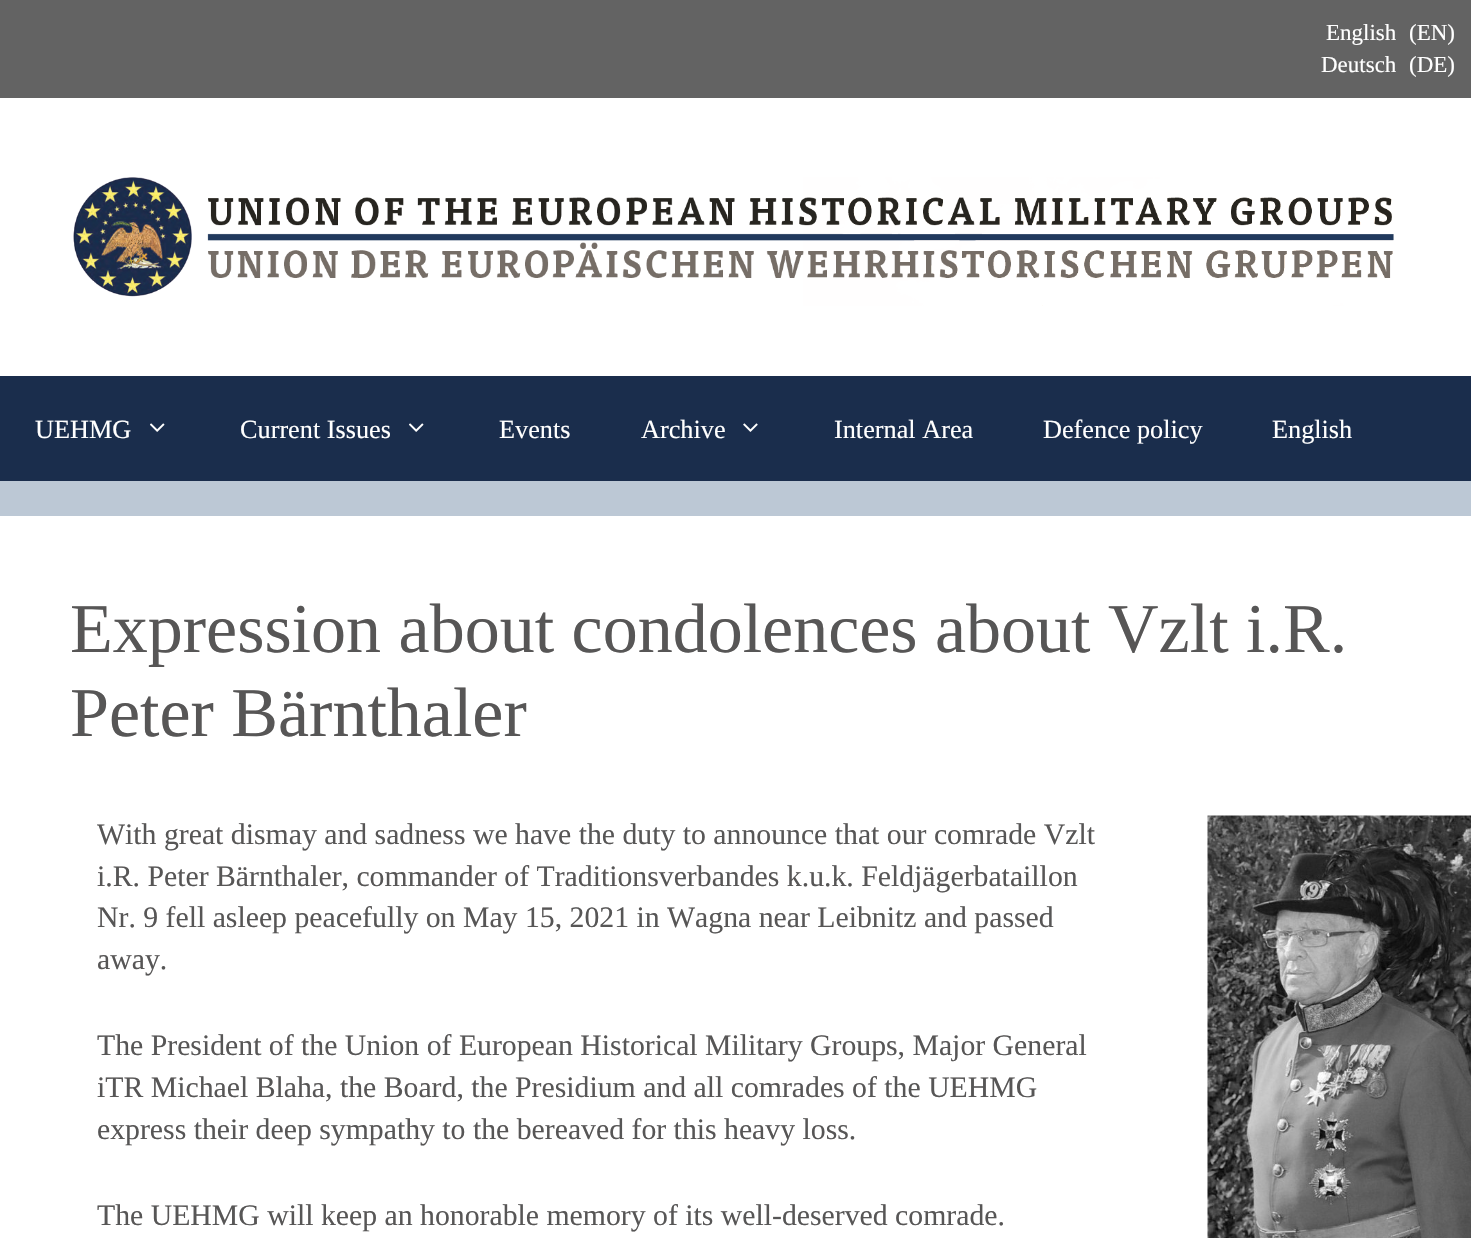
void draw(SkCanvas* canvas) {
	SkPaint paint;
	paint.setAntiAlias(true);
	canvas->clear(0xffbcc8d5);
	paint.setColor(0xff636363);
	canvas->drawRect(SkRect::MakeXYWH(0, 0, 1471, 98), paint);
	SkFont f1(fontMgr->matchFamilyStyle("Liberation Serif", SkFontStyle::Normal()), 23);
	f1.setSubpixel(true);
	paint.setColor(0xffffffff);
	canvas->drawString("English", 1326, 40, f1, paint);
	canvas->drawString("(EN)", 1409, 40, f1, paint);
	canvas->drawString("Deutsch", 1321, 72, f1, paint);
	canvas->drawString("(DE)", 1409, 72, f1, paint);
	canvas->drawRect(SkRect::MakeXYWH(0, 98, 1471, 278), paint);
	canvas->drawImageRect(SkImages::DeferredFromEncodedData(SkData::MakeFromFileName("img1.png")), SkRect::MakeXYWH(73, 177, 1321, 129), SkSamplingOptions());
	paint.setColor(0xff1a2d4c);
	canvas->drawRect(SkRect::MakeXYWH(0, 376, 1471, 105), paint);
	SkFont f2(fontMgr->matchFamilyStyle("Liberation Serif", SkFontStyle::Normal()), 26.25);
	f2.setSubpixel(true);
	paint.setColor(0xffffffff);
	canvas->drawString("UEHMG", 35, 438, f2, paint);
	canvas->drawImageRect(SkImages::DeferredFromEncodedData(SkData::MakeFromFileName("img2.png")), SkRect::MakeXYWH(150, 423, 15, 9), SkSamplingOptions());
	canvas->drawString("Current Issues", 240, 438, f2, paint);
	canvas->drawImageRect(SkImages::DeferredFromEncodedData(SkData::MakeFromFileName("img2.png")), SkRect::MakeXYWH(409, 423, 15, 9), SkSamplingOptions());
	canvas->drawString("Events", 499, 438, f2, paint);
	canvas->drawString("Archive", 641, 438, f2, paint);
	canvas->drawImageRect(SkImages::DeferredFromEncodedData(SkData::MakeFromFileName("img3.png")), SkRect::MakeXYWH(743, 423, 15, 9), SkSamplingOptions());
	canvas->drawString("Internal Area", 834, 438, f2, paint);
	canvas->drawString("Defence policy", 1043, 438, f2, paint);
	canvas->drawString("English", 1272, 438, f2, paint);
	canvas->drawRect(SkRect::MakeXYWH(0, 516, 1471, 722), paint);
	SkFont f3(fontMgr->matchFamilyStyle("Liberation Serif", SkFontStyle::Normal()), 70);
	f3.setSubpixel(true);
	paint.setColor(0xff575656);
	canvas->drawString("Expression about condolences about Vzlt i.R.", 70, 652, f3, paint);
	canvas->drawString("Peter Bärnthaler", 70, 736, f3, paint);
	SkFont f4(fontMgr->matchFamilyStyle("Liberation Serif", SkFontStyle::Normal()), 29.75);
	f4.setSubpixel(true);
	canvas->drawString("With great dismay and sadness we have the duty to announce that our comrade Vzlt", 97, 844, f4, paint);
	canvas->drawString("i.R. Peter Bärnthaler, commander of Traditionsverbandes k.u.k. Feldjägerbataillon", 97, 886, f4, paint);
	canvas->drawString("Nr. 9 fell asleep peacefully on May 15, 2021 in Wagna near Leibnitz and passed", 97, 927, f4, paint);
	canvas->drawString("away.", 97, 969, f4, paint);
	canvas->drawString("The President of the Union of European Historical Military Groups, Major General", 97, 1055, f4, paint);
	canvas->drawString("iTR Michael Blaha, the Board, the Presidium and all comrades of the UEHMG", 97, 1097, f4, paint);
	canvas->drawString("express their deep sympathy to the bereaved for this heavy loss.", 97, 1139, f4, paint);
	canvas->drawString("The UEHMG will keep an honorable memory of its well-deserved comrade.", 97, 1225, f4, paint);
	canvas->drawImageRect(SkImages::DeferredFromEncodedData(SkData::MakeFromFileName("img4.png")), SkRect::MakeXYWH(1207, 815, 264, 423), SkSamplingOptions());
}
